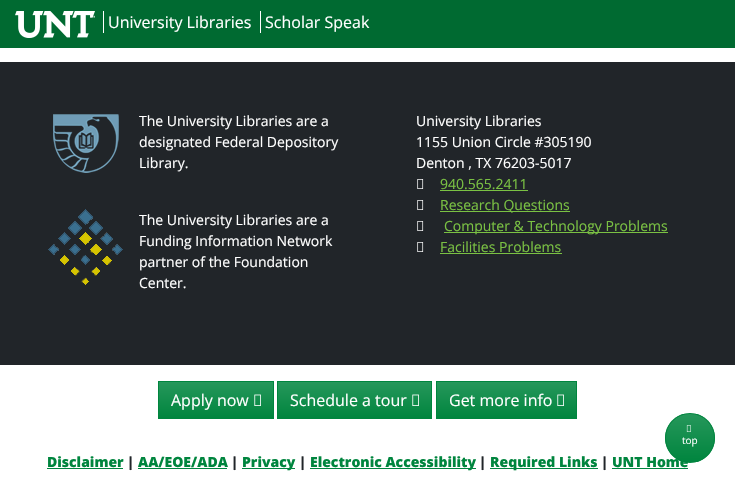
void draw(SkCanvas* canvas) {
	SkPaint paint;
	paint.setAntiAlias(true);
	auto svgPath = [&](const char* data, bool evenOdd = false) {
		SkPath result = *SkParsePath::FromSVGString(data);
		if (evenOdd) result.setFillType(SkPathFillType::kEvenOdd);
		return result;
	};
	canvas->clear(0xffffffff);
	paint.setColor(0xff006a31);
	canvas->drawRect(SkRect::MakeXYWH(0, 0, 735, 48), paint);
	canvas->drawImageRect(SkImages::DeferredFromEncodedData(SkData::MakeFromFileName("img1.png")), SkRect::MakeXYWH(15, 11, 80, 27), SkSamplingOptions());
	SkFont f1(fontMgr->matchFamilyStyle("Open Sans", SkFontStyle::Normal()), 16);
	f1.setSubpixel(true);
	paint.setColor(0xffffffff);
	canvas->drawString("University Libraries", 108, 28, f1, paint);
	canvas->drawRect(SkRect::MakeXYWH(103, 11, 1, 22), paint);
	canvas->drawString("Scholar Speak", 265, 28, f1, paint);
	canvas->drawRect(SkRect::MakeXYWH(260, 11, 1, 22), paint);
	paint.setColor(0xff212529);
	canvas->drawRect(SkRect::MakeXYWH(0, 62, 735, 303), paint);
	canvas->drawImageRect(SkImages::DeferredFromEncodedData(SkData::MakeFromFileName("img2.png")), SkRect::MakeXYWH(53, 114, 66, 59), SkSamplingOptions());
	SkFont f2(fontMgr->matchFamilyStyle("Open Sans", SkFontStyle::Normal()), 14);
	f2.setSubpixel(true);
	paint.setColor(0xffffffff);
	canvas->drawString("The University Libraries are a", 139, 126, f2, paint);
	canvas->drawString("designated Federal Depository", 139, 147, f2, paint);
	canvas->drawString("Library.", 139, 168, f2, paint);
	canvas->drawImageRect(SkImages::DeferredFromEncodedData(SkData::MakeFromFileName("img3.png")), SkRect::MakeXYWH(48, 209, 75, 76), SkSamplingOptions());
	canvas->drawString("The University Libraries are a", 139, 225, f2, paint);
	canvas->drawString("Funding Information Network", 139, 246, f2, paint);
	canvas->drawString("partner of the Foundation", 139, 267, f2, paint);
	canvas->drawString("Center.", 139, 288, f2, paint);
	canvas->drawString("University Libraries", 416, 126, f2, paint);
	canvas->drawString("1155 Union Circle #305190", 416, 147, f2, paint);
	canvas->drawString("Denton , TX 76203-5017", 416, 168, f2, paint);
	canvas->drawImageRect(SkImages::DeferredFromEncodedData(SkData::MakeFromFileName("img4.png")), SkRect::MakeXYWH(417, 179, 7, 10), SkSamplingOptions());
	paint.setColor(0xff7ac143);
	canvas->drawString("940.565.2411", 440, 189, f2, paint);
	canvas->drawRect(SkRect::MakeXYWH(440, 190, 88, 1), paint);
	canvas->drawImageRect(SkImages::DeferredFromEncodedData(SkData::MakeFromFileName("img4.png")), SkRect::MakeXYWH(417, 200, 7, 10), SkSamplingOptions());
	canvas->drawRect(SkRect::MakeXYWH(440, 211, 130, 1), paint);
	canvas->drawString("Research Questions", 440, 210, f2, paint);
	canvas->drawImageRect(SkImages::DeferredFromEncodedData(SkData::MakeFromFileName("img4.png")), SkRect::MakeXYWH(417, 221, 7, 10), SkSamplingOptions());
	canvas->drawRect(SkRect::MakeXYWH(444, 232, 224, 1), paint);
	canvas->drawString("Computer & Technology Problems", 444, 231, f2, paint);
	canvas->drawImageRect(SkImages::DeferredFromEncodedData(SkData::MakeFromFileName("img4.png")), SkRect::MakeXYWH(417, 242, 7, 10), SkSamplingOptions());
	canvas->drawString("Facilities Problems", 440, 252, f2, paint);
	canvas->drawRect(SkRect::MakeXYWH(440, 253, 122, 1), paint);
	{
		const SkColor colors[] = {0xff26975b, 0xff00853e};
		const float stops[] = {0, 1};
		const SkPoint ends[] = {{216, 382}, {216, 418}};
		paint.setShader(SkGradientShader::MakeLinear(ends, colors, stops, 2, SkTileMode::kClamp));
		paint.setAlpha(255);
	}
	canvas->drawRect(SkRect::MakeXYWH(159, 382, 114, 36), paint);
	paint.setStroke(true);
	paint.setStrokeWidth(1);
	paint.setShader(nullptr);
	paint.setColor(0xff00853e);
	canvas->drawRect(SkRect::MakeXYWH(158.5, 381.5, 115, 37), paint);
	paint.setStroke(false);
	paint.setColor(0xffffffff);
	canvas->drawString("Apply now", 171, 406, f1, paint);
	canvas->drawImageRect(SkImages::DeferredFromEncodedData(SkData::MakeFromFileName("img5.png")), SkRect::MakeXYWH(254, 394, 7, 12), SkSamplingOptions());
	{
		const SkColor colors[] = {0xff26975b, 0xff00853e};
		const float stops[] = {0, 1};
		const SkPoint ends[] = {{355, 382}, {355, 418}};
		paint.setShader(SkGradientShader::MakeLinear(ends, colors, stops, 2, SkTileMode::kClamp));
		paint.setAlpha(255);
	}
	canvas->drawRect(SkRect::MakeXYWH(278, 382, 153, 36), paint);
	paint.setStroke(true);
	paint.setShader(nullptr);
	paint.setColor(0xff00853e);
	canvas->drawRect(SkRect::MakeXYWH(277.5, 381.5, 154, 37), paint);
	paint.setStroke(false);
	paint.setColor(0xffffffff);
	canvas->drawString("Schedule a tour", 290, 406, f1, paint);
	canvas->drawImageRect(SkImages::DeferredFromEncodedData(SkData::MakeFromFileName("img5.png")), SkRect::MakeXYWH(412, 394, 7, 12), SkSamplingOptions());
	{
		const SkColor colors[] = {0xff26975b, 0xff00853e};
		const float stops[] = {0, 1};
		const SkPoint ends[] = {{507, 382}, {507, 418}};
		paint.setShader(SkGradientShader::MakeLinear(ends, colors, stops, 2, SkTileMode::kClamp));
		paint.setAlpha(255);
	}
	canvas->drawRect(SkRect::MakeXYWH(437, 382, 139, 36), paint);
	paint.setStroke(true);
	paint.setShader(nullptr);
	paint.setColor(0xff00853e);
	canvas->drawRect(SkRect::MakeXYWH(436.5, 381.5, 140, 37), paint);
	paint.setStroke(false);
	paint.setColor(0xffffffff);
	canvas->drawString("Get more info", 449, 406, f1, paint);
	canvas->drawImageRect(SkImages::DeferredFromEncodedData(SkData::MakeFromFileName("img5.png")), SkRect::MakeXYWH(557, 394, 7, 12), SkSamplingOptions());
	SkFont f3(fontMgr->matchFamilyStyle("Open Sans", SkFontStyle(800, SkFontStyle::kNormal_Width, SkFontStyle::kUpright_Slant)), 14);
	f3.setSubpixel(true);
	paint.setColor(0xff00853e);
	canvas->drawString("Disclaimer", 47, 467, f3, paint);
	canvas->drawRect(SkRect::MakeXYWH(47, 468, 76, 1), paint);
	paint.setColor(0xff212529);
	canvas->drawString("|", 127, 467, f3, paint);
	paint.setColor(0xff00853e);
	canvas->drawString("AA/EOE/ADA", 138, 467, f3, paint);
	canvas->drawRect(SkRect::MakeXYWH(138, 468, 89, 1), paint);
	paint.setColor(0xff212529);
	canvas->drawString("|", 231, 467, f3, paint);
	paint.setColor(0xff00853e);
	canvas->drawRect(SkRect::MakeXYWH(242, 468, 53, 1), paint);
	canvas->drawString("Privacy", 242, 467, f3, paint);
	paint.setColor(0xff212529);
	canvas->drawString("|", 299, 467, f3, paint);
	paint.setColor(0xff00853e);
	canvas->drawRect(SkRect::MakeXYWH(310, 468, 166, 1), paint);
	canvas->drawString("Electronic Accessibility", 310, 467, f3, paint);
	paint.setColor(0xff212529);
	canvas->drawString("|", 479, 467, f3, paint);
	paint.setColor(0xff00853e);
	canvas->drawRect(SkRect::MakeXYWH(490, 468, 108, 1), paint);
	canvas->drawString("Required Links", 490, 467, f3, paint);
	paint.setColor(0xff212529);
	canvas->drawString("|", 601, 467, f3, paint);
	paint.setColor(0xff00853e);
	canvas->drawString("UNT Home", 612, 467, f3, paint);
	canvas->drawRect(SkRect::MakeXYWH(612, 468, 76, 1), paint);
	canvas->save();
	canvas->clipPath(svgPath("M690 413C704 413 715 424 715 438C715 452 704 463 690 463C676 463 665 452 665 438C665 424 676 413 690 413Z"), true);
	{
		const SkColor colors[] = {0xff26975b, 0xff00853e};
		const float stops[] = {0, 1};
		const SkPoint ends[] = {{690, 414}, {690, 462}};
		paint.setShader(SkGradientShader::MakeLinear(ends, colors, stops, 2, SkTileMode::kClamp));
		paint.setAlpha(255);
	}
	canvas->drawRect(SkRect::MakeXYWH(665, 414, 50, 48), paint);
	canvas->restore();
	paint.setStroke(true);
	paint.setShader(nullptr);
	paint.setColor(0xff00853e);
	canvas->drawCircle(690, 438, 24.5, paint);
	canvas->drawImageRect(SkImages::DeferredFromEncodedData(SkData::MakeFromFileName("img6.png")), SkRect::MakeXYWH(686, 425, 5, 7), SkSamplingOptions());
	SkFont f4(fontMgr->matchFamilyStyle("Open Sans", SkFontStyle::Normal()), 10);
	f4.setSubpixel(true);
	paint.setStroke(false);
	paint.setColor(0xffffffff);
	canvas->drawString("top", 682, 444, f4, paint);
}
